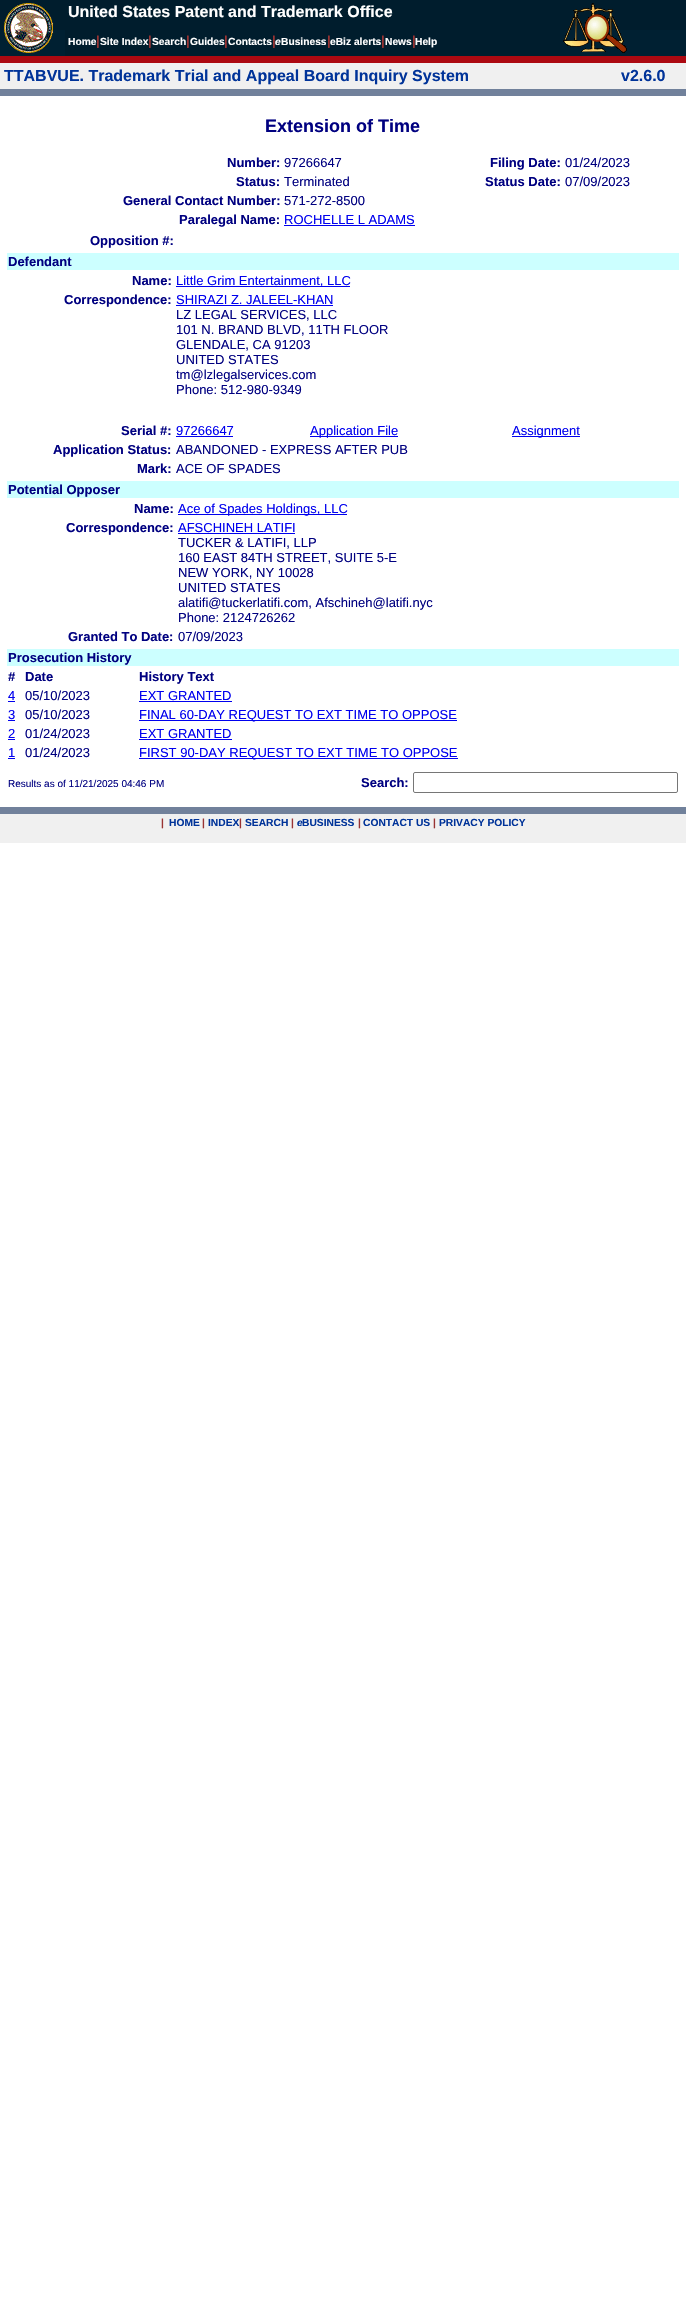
void draw(SkCanvas* canvas) {
	SkPaint paint;
	paint.setAntiAlias(true);
	canvas->clear(0xffffffff);
	paint.setColor(0xff001d2d);
	canvas->drawRect(SkRect::MakeXYWH(0, 0, 686, 30), paint);
	paint.setColor(0xff002032);
	canvas->drawRect(SkRect::MakeXYWH(0, 30, 686, 26), paint);
	canvas->drawImageRect(SkImages::DeferredFromEncodedData(SkData::MakeFromFileName("img1.png")), SkRect::MakeXYWH(4, 3, 49, 50), SkSamplingOptions());
	SkFont f1(fontMgr->matchFamilyStyle("Liberation Sans", SkFontStyle::Bold()), 16);
	f1.setSubpixel(true);
	paint.setColor(0xffffffff);
	canvas->drawString("United States Patent and Trademark Office", 68, 17, f1, paint);
	canvas->drawImageRect(SkImages::DeferredFromEncodedData(SkData::MakeFromFileName("img2.png")), SkRect::MakeXYWH(563, 3, 64, 50), SkSamplingOptions());
	paint.setColor(0xff001d2d);
	canvas->drawRect(SkRect::MakeXYWH(65, 30, 495, 26), paint);
	SkFont f2(fontMgr->matchFamilyStyle("Liberation Sans", SkFontStyle::Bold()), 10.25);
	f2.setSubpixel(true);
	paint.setColor(0xffffffff);
	canvas->drawString("Home", 68, 45, f2, paint);
	SkFont f3(fontMgr->matchFamilyStyle("Liberation Sans", SkFontStyle::Bold()), 13);
	f3.setSubpixel(true);
	paint.setColor(0xff993333);
	canvas->drawString("|", 96, 45, f3, paint);
	paint.setColor(0xffffffff);
	canvas->drawString("Site Index", 100, 45, f2, paint);
	paint.setColor(0xff993333);
	canvas->drawString("|", 148, 45, f3, paint);
	paint.setColor(0xffffffff);
	canvas->drawString("Search", 152, 45, f2, paint);
	paint.setColor(0xff993333);
	canvas->drawString("|", 186, 45, f3, paint);
	paint.setColor(0xffffffff);
	canvas->drawString("Guides", 190, 45, f2, paint);
	paint.setColor(0xff993333);
	canvas->drawString("|", 224, 45, f3, paint);
	paint.setColor(0xffffffff);
	canvas->drawString("Contacts", 228, 45, f2, paint);
	paint.setColor(0xff993333);
	canvas->drawString("|", 272, 45, f3, paint);
	SkFont f4(fontMgr->matchFamilyStyle("Liberation Sans", SkFontStyle::BoldItalic()), 10.25);
	f4.setSubpixel(true);
	paint.setColor(0xffffffff);
	canvas->drawString("e", 275, 45, f4, paint);
	canvas->drawString("Business", 281, 45, f2, paint);
	paint.setColor(0xff993333);
	canvas->drawString("|", 327, 45, f3, paint);
	paint.setColor(0xffffffff);
	canvas->drawString("eBiz alerts", 330, 45, f2, paint);
	paint.setColor(0xff993333);
	canvas->drawString("|", 381, 45, f3, paint);
	paint.setColor(0xffffffff);
	canvas->drawString("News", 385, 45, f2, paint);
	paint.setColor(0xff993333);
	canvas->drawString("|", 412, 45, f3, paint);
	paint.setColor(0xffffffff);
	canvas->drawString("Help", 415, 45, f2, paint);
	paint.setColor(0xffac0911);
	canvas->drawRect(SkRect::MakeXYWH(0, 56, 686, 7), paint);
	paint.setColor(0xfff0f0f0);
	canvas->drawRect(SkRect::MakeXYWH(0, 63, 686, 26), paint);
	paint.setColor(0xff003399);
	canvas->drawString("TTABVUE. Trademark Trial and Appeal Board Inquiry System", 4, 81, f1, paint);
	canvas->drawString("v2.6.0", 621, 81, f1, paint);
	paint.setColor(0xff71819b);
	canvas->drawRect(SkRect::MakeXYWH(0, 89, 686, 7), paint);
	SkFont f5(fontMgr->matchFamilyStyle("Liberation Sans", SkFontStyle::Bold()), 18);
	f5.setSubpixel(true);
	paint.setColor(0xff000080);
	canvas->drawString("Extension of Time", 265, 132, f5, paint);
	canvas->drawString("Number:", 227, 167, f3, paint);
	SkFont f6(fontMgr->matchFamilyStyle("Liberation Sans", SkFontStyle::Normal()), 13);
	f6.setSubpixel(true);
	canvas->drawString("97266647", 284, 167, f6, paint);
	canvas->drawString("Filing Date:", 490, 167, f3, paint);
	canvas->drawString("01/24/2023", 565, 167, f6, paint);
	canvas->drawString("Status:", 236, 186, f3, paint);
	canvas->drawString("Terminated", 284, 186, f6, paint);
	canvas->drawString("Status Date:", 485, 186, f3, paint);
	canvas->drawString("07/09/2023", 565, 186, f6, paint);
	canvas->drawString("General Contact Number:", 123, 205, f3, paint);
	canvas->drawString("571-272-8500", 284, 205, f6, paint);
	canvas->drawString("Paralegal Name:", 179, 224, f3, paint);
	paint.setColor(0xff0000ee);
	canvas->drawString("ROCHELLE L ADAMS", 284, 224, f6, paint);
	canvas->drawRect(SkRect::MakeXYWH(284, 225, 131, 1), paint);
	paint.setColor(0xff000080);
	canvas->drawString("Opposition #:", 90, 245, f3, paint);
	paint.setColor(0xffccffff);
	canvas->drawRect(SkRect::MakeXYWH(7, 253, 672, 17), paint);
	paint.setColor(0xff000080);
	canvas->drawString("Defendant", 8, 266, f3, paint);
	canvas->drawString("Name:", 132, 285, f3, paint);
	paint.setColor(0xff0000ee);
	canvas->drawRect(SkRect::MakeXYWH(176, 286, 174, 1), paint);
	canvas->drawString("Little Grim Entertainment, LLC", 176, 285, f6, paint);
	paint.setColor(0xff000080);
	canvas->drawString("Correspondence:", 64, 304, f3, paint);
	paint.setColor(0xff0000ee);
	canvas->drawString("SHIRAZI Z. JALEEL-KHAN", 176, 304, f6, paint);
	canvas->drawRect(SkRect::MakeXYWH(176, 305, 157, 1), paint);
	paint.setColor(0xff000080);
	canvas->drawString("LZ LEGAL SERVICES, LLC", 176, 319, f6, paint);
	canvas->drawString("101 N. BRAND BLVD, 11TH FLOOR", 176, 334, f6, paint);
	canvas->drawString("GLENDALE, CA 91203", 176, 349, f6, paint);
	canvas->drawString("UNITED STATES", 176, 364, f6, paint);
	canvas->drawString("tm@lzlegalservices.com", 176, 379, f6, paint);
	canvas->drawString("Phone: 512-980-9349", 176, 394, f6, paint);
	canvas->drawString("Serial #:", 121, 435, f3, paint);
	paint.setColor(0xff0000ee);
	canvas->drawString("97266647", 176, 435, f6, paint);
	canvas->drawRect(SkRect::MakeXYWH(176, 436, 57, 1), paint);
	canvas->drawRect(SkRect::MakeXYWH(310, 436, 88, 1), paint);
	canvas->drawString("Application File", 310, 435, f6, paint);
	canvas->drawRect(SkRect::MakeXYWH(512, 436, 68, 1), paint);
	canvas->drawString("Assignment", 512, 435, f6, paint);
	paint.setColor(0xff000080);
	canvas->drawString("Application Status:", 53, 454, f3, paint);
	canvas->drawString("ABANDONED - EXPRESS AFTER PUB", 176, 454, f6, paint);
	canvas->drawString("Mark:", 137, 473, f3, paint);
	canvas->drawString("ACE OF SPADES", 176, 473, f6, paint);
	paint.setColor(0xffccffff);
	canvas->drawRect(SkRect::MakeXYWH(7, 481, 672, 17), paint);
	paint.setColor(0xff000080);
	canvas->drawString("Potential Opposer", 8, 494, f3, paint);
	canvas->drawString("Name:", 134, 513, f3, paint);
	paint.setColor(0xff0000ee);
	canvas->drawRect(SkRect::MakeXYWH(178, 514, 169, 1), paint);
	canvas->drawString("Ace of Spades Holdings, LLC", 178, 513, f6, paint);
	paint.setColor(0xff000080);
	canvas->drawString("Correspondence:", 66, 532, f3, paint);
	paint.setColor(0xff0000ee);
	canvas->drawString("AFSCHINEH LATIFI", 178, 532, f6, paint);
	canvas->drawRect(SkRect::MakeXYWH(178, 533, 117, 1), paint);
	paint.setColor(0xff000080);
	canvas->drawString("TUCKER & LATIFI, LLP", 178, 547, f6, paint);
	canvas->drawString("160 EAST 84TH STREET, SUITE 5-E", 178, 562, f6, paint);
	canvas->drawString("NEW YORK, NY 10028", 178, 577, f6, paint);
	canvas->drawString("UNITED STATES", 178, 592, f6, paint);
	canvas->drawString("alatifi@tuckerlatifi.com, Afschineh@latifi.nyc", 178, 607, f6, paint);
	canvas->drawString("Phone: 2124726262", 178, 622, f6, paint);
	canvas->drawString("Granted To Date:", 68, 641, f3, paint);
	canvas->drawString("07/09/2023", 178, 641, f6, paint);
	paint.setColor(0xffccffff);
	canvas->drawRect(SkRect::MakeXYWH(7, 649, 672, 17), paint);
	paint.setColor(0xff000080);
	canvas->drawString("Prosecution History", 8, 662, f3, paint);
	canvas->drawString("#", 8, 681, f3, paint);
	canvas->drawString("Date", 25, 681, f3, paint);
	canvas->drawString("History Text", 139, 681, f3, paint);
	paint.setColor(0xff0000ee);
	canvas->drawString("4", 8, 700, f6, paint);
	canvas->drawRect(SkRect::MakeXYWH(8, 701, 7, 1), paint);
	paint.setColor(0xff000080);
	canvas->drawString("05/10/2023", 25, 700, f6, paint);
	paint.setColor(0xff0000ee);
	canvas->drawString("EXT GRANTED", 139, 700, f6, paint);
	canvas->drawRect(SkRect::MakeXYWH(139, 701, 93, 1), paint);
	canvas->drawString("3", 8, 719, f6, paint);
	canvas->drawRect(SkRect::MakeXYWH(8, 720, 7, 1), paint);
	paint.setColor(0xff000080);
	canvas->drawString("05/10/2023", 25, 719, f6, paint);
	paint.setColor(0xff0000ee);
	canvas->drawRect(SkRect::MakeXYWH(139, 720, 318, 1), paint);
	canvas->drawString("FINAL 60-DAY REQUEST TO EXT TIME TO OPPOSE", 139, 719, f6, paint);
	canvas->drawString("2", 8, 738, f6, paint);
	canvas->drawRect(SkRect::MakeXYWH(8, 739, 7, 1), paint);
	paint.setColor(0xff000080);
	canvas->drawString("01/24/2023", 25, 738, f6, paint);
	paint.setColor(0xff0000ee);
	canvas->drawString("EXT GRANTED", 139, 738, f6, paint);
	canvas->drawRect(SkRect::MakeXYWH(139, 739, 93, 1), paint);
	canvas->drawString("1", 8, 757, f6, paint);
	canvas->drawRect(SkRect::MakeXYWH(8, 758, 7, 1), paint);
	paint.setColor(0xff000080);
	canvas->drawString("01/24/2023", 25, 757, f6, paint);
	paint.setColor(0xff0000ee);
	canvas->drawRect(SkRect::MakeXYWH(139, 758, 319, 1), paint);
	canvas->drawString("FIRST 90-DAY REQUEST TO EXT TIME TO OPPOSE", 139, 757, f6, paint);
	SkFont f7(fontMgr->matchFamilyStyle("Liberation Sans", SkFontStyle::Normal()), 10);
	f7.setSubpixel(true);
	paint.setColor(0xff000080);
	canvas->drawString("Results as of 11/21/2025 04:46 PM", 8, 787, f7, paint);
	canvas->drawString("Search:", 361, 787, f3, paint);
	paint.setStroke(true);
	paint.setStrokeWidth(1);
	paint.setColor(0xff767676);
	canvas->drawRoundRect(SkRect::MakeXYWH(413.5, 772.5, 264, 20), 1.5, 1.5, paint);
	paint.setStroke(false);
	paint.setColor(0xff71819b);
	canvas->drawRect(SkRect::MakeXYWH(0, 807, 686, 7), paint);
	paint.setColor(0xfff0f0f0);
	canvas->drawRect(SkRect::MakeXYWH(0, 814, 686, 29), paint);
	paint.setColor(0xff993333);
	canvas->drawString("|", 161, 826, f2, paint);
	paint.setColor(0xff003399);
	canvas->drawString("HOME", 169, 826, f2, paint);
	paint.setColor(0xff993333);
	canvas->drawString("|", 202, 826, f2, paint);
	paint.setColor(0xff003399);
	canvas->drawString("INDEX", 208, 826, f2, paint);
	paint.setColor(0xff993333);
	canvas->drawString("|", 239, 826, f2, paint);
	paint.setColor(0xff003399);
	canvas->drawString("SEARCH", 245, 826, f2, paint);
	paint.setColor(0xff993333);
	canvas->drawString("|", 291, 826, f2, paint);
	paint.setColor(0xff003399);
	canvas->drawString("e", 297, 826, f4, paint);
	canvas->drawString("BUSINESS", 302, 826, f2, paint);
	paint.setColor(0xff993333);
	canvas->drawString("|", 358, 826, f2, paint);
	paint.setColor(0xff003399);
	canvas->drawString("CONTACT US", 363, 826, f2, paint);
	paint.setColor(0xff993333);
	canvas->drawString("|", 433, 826, f2, paint);
	paint.setColor(0xff003399);
	canvas->drawString("PRIVACY POLICY", 439, 826, f2, paint);
}
